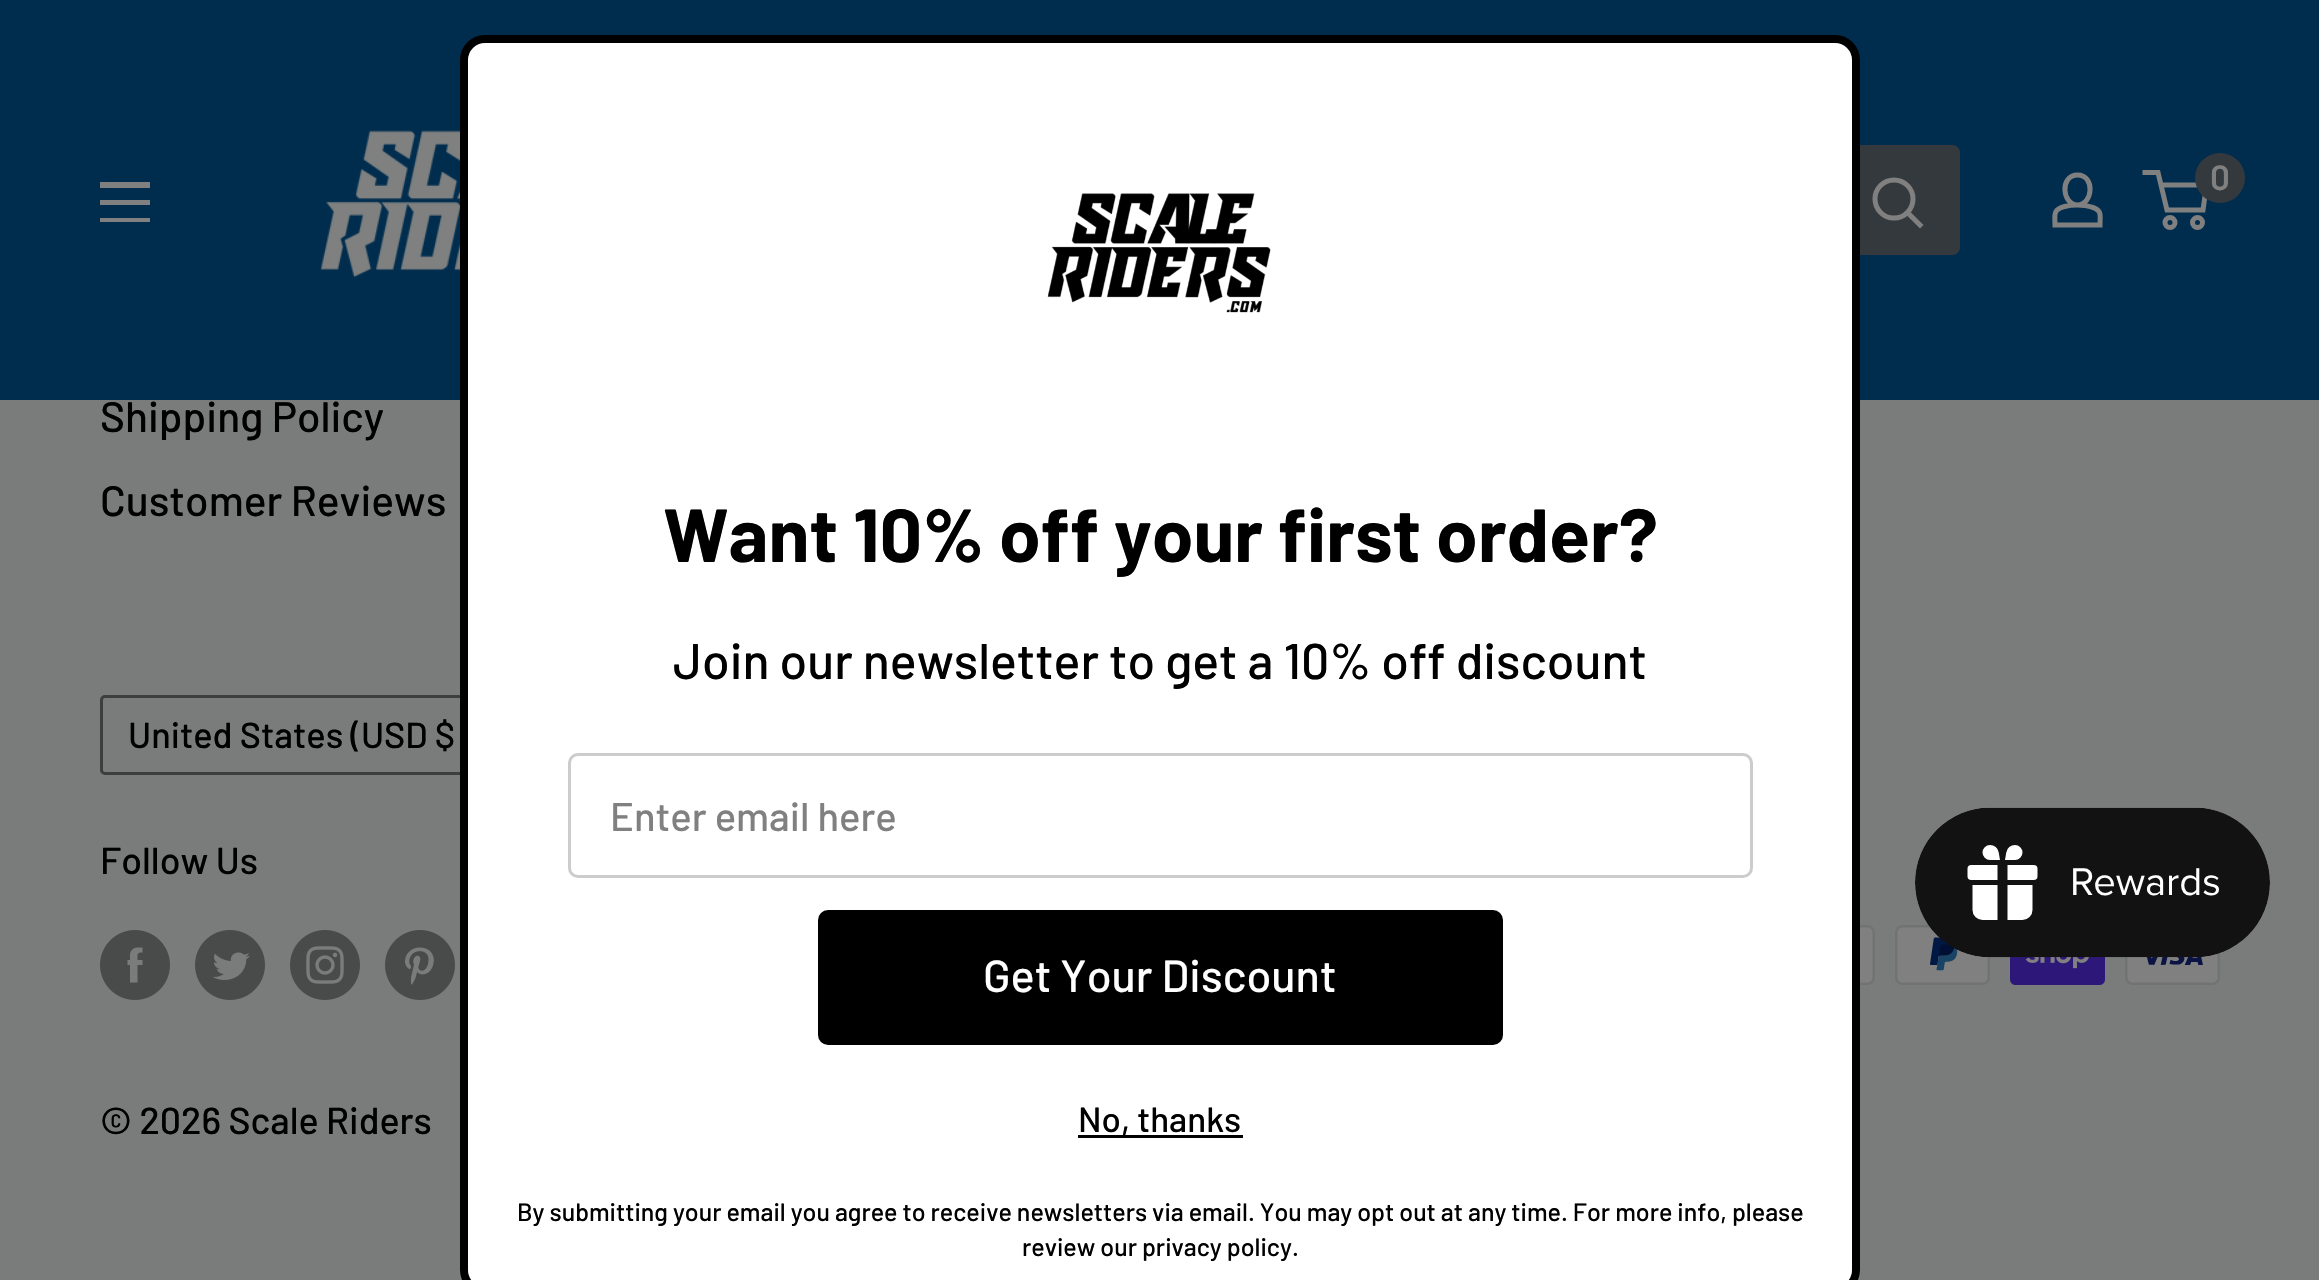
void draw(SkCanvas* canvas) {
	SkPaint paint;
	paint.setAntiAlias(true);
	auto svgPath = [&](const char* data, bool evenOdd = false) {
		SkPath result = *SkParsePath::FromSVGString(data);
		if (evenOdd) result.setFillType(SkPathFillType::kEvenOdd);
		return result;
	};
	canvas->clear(0xff7a7b7b);
	paint.setColor(0xff002d4e);
	canvas->drawRect(SkRect::MakeXYWH(0, 0, 2319, 400), paint);
	canvas->drawImageRect(SkImages::DeferredFromEncodedData(SkData::MakeFromFileName("img1.png")), SkRect::MakeXYWH(320, 130, 140, 148), SkSamplingOptions());
	paint.setColor(0xff34393d);
	canvas->drawPath(svgPath("M1835 145H1952C1956.5 145 1960 148.5 1960 153V247C1960 251.5 1956.5 255 1952 255H1835Z"), paint);
	paint.setStroke(true);
	paint.setStrokeWidth(5);
	paint.setStrokeCap(SkPaint::kSquare_Cap);
	paint.setColor(0xff808080);
	canvas->drawPath(svgPath("M1920 225L1907.5 212.5"), paint);
	paint.setStrokeCap(SkPaint::kButt_Cap);
	canvas->drawCircle(1894, 199, 19, paint);
	canvas->drawPath(svgPath("M2077.5 205C2082 205 2087 205.5 2091.5 207C2102.5 210 2100 215.5 2100 225H2055C2055 215 2052.5 209.5 2064.5 206.5C2068.5 205.5 2073 205 2077.5 205ZM2077.5 205C2062 205 2059.5 175 2077.5 175C2095.5 175 2093 205 2077.5 205Z"), paint);
	canvas->drawCircle(2170, 222.5, 5, paint);
	canvas->drawCircle(2197.5, 222.5, 5, paint);
	canvas->drawPath(svgPath("M2161 185H2206.5L2203 210H2167L2158 172.5H2142.5"), paint);
	paint.setStroke(false);
	paint.setColor(0xff34393d);
	canvas->drawCircle(2220, 178, 25, paint);
	SkFont f1(fontMgr->matchFamilyStyle("Barlow", SkFontStyle(600, SkFontStyle::kNormal_Width, SkFontStyle::kUpright_Slant)), 35);
	f1.setSubpixel(true);
	paint.setColor(0xff808080);
	canvas->drawString("0", 2210, 190, f1, paint);
	canvas->drawPath(svgPath("M100 218H150V222H100ZM100 182H150V188H100ZM100 200H150V205H100Z", true), paint);
	SkFont f2(fontMgr->matchFamilyStyle("Barlow", SkFontStyle(500, SkFontStyle::kNormal_Width, SkFontStyle::kUpright_Slant)), 42.5);
	f2.setSubpixel(true);
	paint.setColor(0xff000000);
	canvas->drawString("Shipping Policy", 100, 432, f2, paint);
	canvas->drawString("Customer Reviews", 100, 516, f2, paint);
	paint.setStroke(true);
	paint.setStrokeWidth(3);
	paint.setColor(0xff3d3e3e);
	canvas->drawRoundRect(SkRect::MakeXYWH(101.5, 696.5, 475, 77), 3.5, 3.5, paint);
	SkFont f3(fontMgr->matchFamilyStyle("Barlow", SkFontStyle(500, SkFontStyle::kNormal_Width, SkFontStyle::kUpright_Slant)), 36.1);
	f3.setSubpixel(true);
	paint.setStroke(false);
	paint.setColor(0xff000000);
	canvas->drawString("United States (USD $", 128, 748, f3, paint);
	SkFont f4(fontMgr->matchFamilyStyle("Barlow", SkFontStyle(500, SkFontStyle::kNormal_Width, SkFontStyle::kUpright_Slant)), 37.5);
	f4.setSubpixel(true);
	canvas->drawString("Follow Us", 100, 874, f4, paint);
	canvas->drawImageRect(SkImages::DeferredFromEncodedData(SkData::MakeFromFileName("img2.png")), SkRect::MakeXYWH(100, 930, 70, 70), SkSamplingOptions());
	canvas->drawImageRect(SkImages::DeferredFromEncodedData(SkData::MakeFromFileName("img3.png")), SkRect::MakeXYWH(195, 930, 70, 70), SkSamplingOptions());
	canvas->drawImageRect(SkImages::DeferredFromEncodedData(SkData::MakeFromFileName("img4.png")), SkRect::MakeXYWH(290, 930, 70, 70), SkSamplingOptions());
	canvas->drawImageRect(SkImages::DeferredFromEncodedData(SkData::MakeFromFileName("img5.png")), SkRect::MakeXYWH(385, 930, 70, 70), SkSamplingOptions());
	canvas->drawImageRect(SkImages::DeferredFromEncodedData(SkData::MakeFromFileName("img6.png")), SkRect::MakeXYWH(1860, 925, 15, 60), SkSamplingOptions());
	canvas->drawImageRect(SkImages::DeferredFromEncodedData(SkData::MakeFromFileName("img7.png")), SkRect::MakeXYWH(1895, 925, 95, 60), SkSamplingOptions());
	canvas->drawImageRect(SkImages::DeferredFromEncodedData(SkData::MakeFromFileName("img8.png")), SkRect::MakeXYWH(2010, 957, 95, 28), SkSamplingOptions());
	canvas->drawImageRect(SkImages::DeferredFromEncodedData(SkData::MakeFromFileName("img9.png")), SkRect::MakeXYWH(2125, 953, 95, 32), SkSamplingOptions());
	canvas->drawString("© 2026 Scale Riders", 100, 1134, f4, paint);
	paint.setColor(0xffffffff);
	canvas->drawRoundRect(SkRect::MakeXYWH(464, 39, 1392, 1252), 21, 21, paint);
	paint.setStroke(true);
	paint.setStrokeWidth(8);
	paint.setColor(0xff000000);
	canvas->drawRoundRect(SkRect::MakeXYWH(464, 39, 1392, 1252), 21, 21, paint);
	canvas->drawImageRect(SkImages::DeferredFromEncodedData(SkData::MakeFromFileName("img10.png")), SkRect::MakeXYWH(1047, 193, 224, 120), SkSamplingOptions());
	SkFont f5(fontMgr->matchFamilyStyle("Barlow", SkFontStyle::Bold()), 75);
	f5.setSubpixel(true);
	paint.setStroke(false);
	canvas->drawString("Want 10% off your first order?", 663, 562, f5, paint);
	SkFont f6(fontMgr->matchFamilyStyle("Barlow", SkFontStyle(500, SkFontStyle::kNormal_Width, SkFontStyle::kUpright_Slant)), 50);
	f6.setSubpixel(true);
	canvas->drawString("Join our newsletter to get a 10% off discount", 673, 679, f6, paint);
	paint.setStroke(true);
	paint.setStrokeWidth(3);
	paint.setColor(0xffcccccc);
	canvas->drawRoundRect(SkRect::MakeXYWH(569.5, 754.5, 1182, 122), 8.5, 8.5, paint);
	SkFont f7(fontMgr->matchFamilyStyle("Barlow", SkFontStyle(500, SkFontStyle::kNormal_Width, SkFontStyle::kUpright_Slant)), 40);
	f7.setSubpixel(true);
	paint.setStroke(false);
	paint.setColor(0xff808080);
	canvas->drawString("Enter email here", 610, 831, f7, paint);
	paint.setColor(0xff000000);
	canvas->drawRoundRect(SkRect::MakeXYWH(818, 910, 685, 135), 10, 10, paint);
	SkFont f8(fontMgr->matchFamilyStyle("Barlow", SkFontStyle(500, SkFontStyle::kNormal_Width, SkFontStyle::kUpright_Slant)), 45);
	f8.setSubpixel(true);
	paint.setColor(0xffffffff);
	canvas->drawString("Get Your Discount", 983, 992, f8, paint);
	SkFont f9(fontMgr->matchFamilyStyle("Barlow", SkFontStyle(500, SkFontStyle::kNormal_Width, SkFontStyle::kUpright_Slant)), 35);
	f9.setSubpixel(true);
	paint.setColor(0xff000000);
	canvas->drawString("No, thanks", 1078, 1132, f9, paint);
	canvas->drawRect(SkRect::MakeXYWH(1078, 1135, 165, 3), paint);
	SkFont f10(fontMgr->matchFamilyStyle("Barlow", SkFontStyle(500, SkFontStyle::kNormal_Width, SkFontStyle::kUpright_Slant)), 25);
	f10.setSubpixel(true);
	canvas->drawString("By submitting your email you agree to receive newsletters via email. You may opt out at any time. For more info, please", 517, 1221, f10, paint);
	canvas->drawString("review our privacy policy.", 1022, 1256, f10, paint);
	canvas->drawImageRect(SkImages::DeferredFromEncodedData(SkData::MakeFromFileName("img11.png")), SkRect::MakeXYWH(1915, 807, 355, 151), SkSamplingOptions());
}
